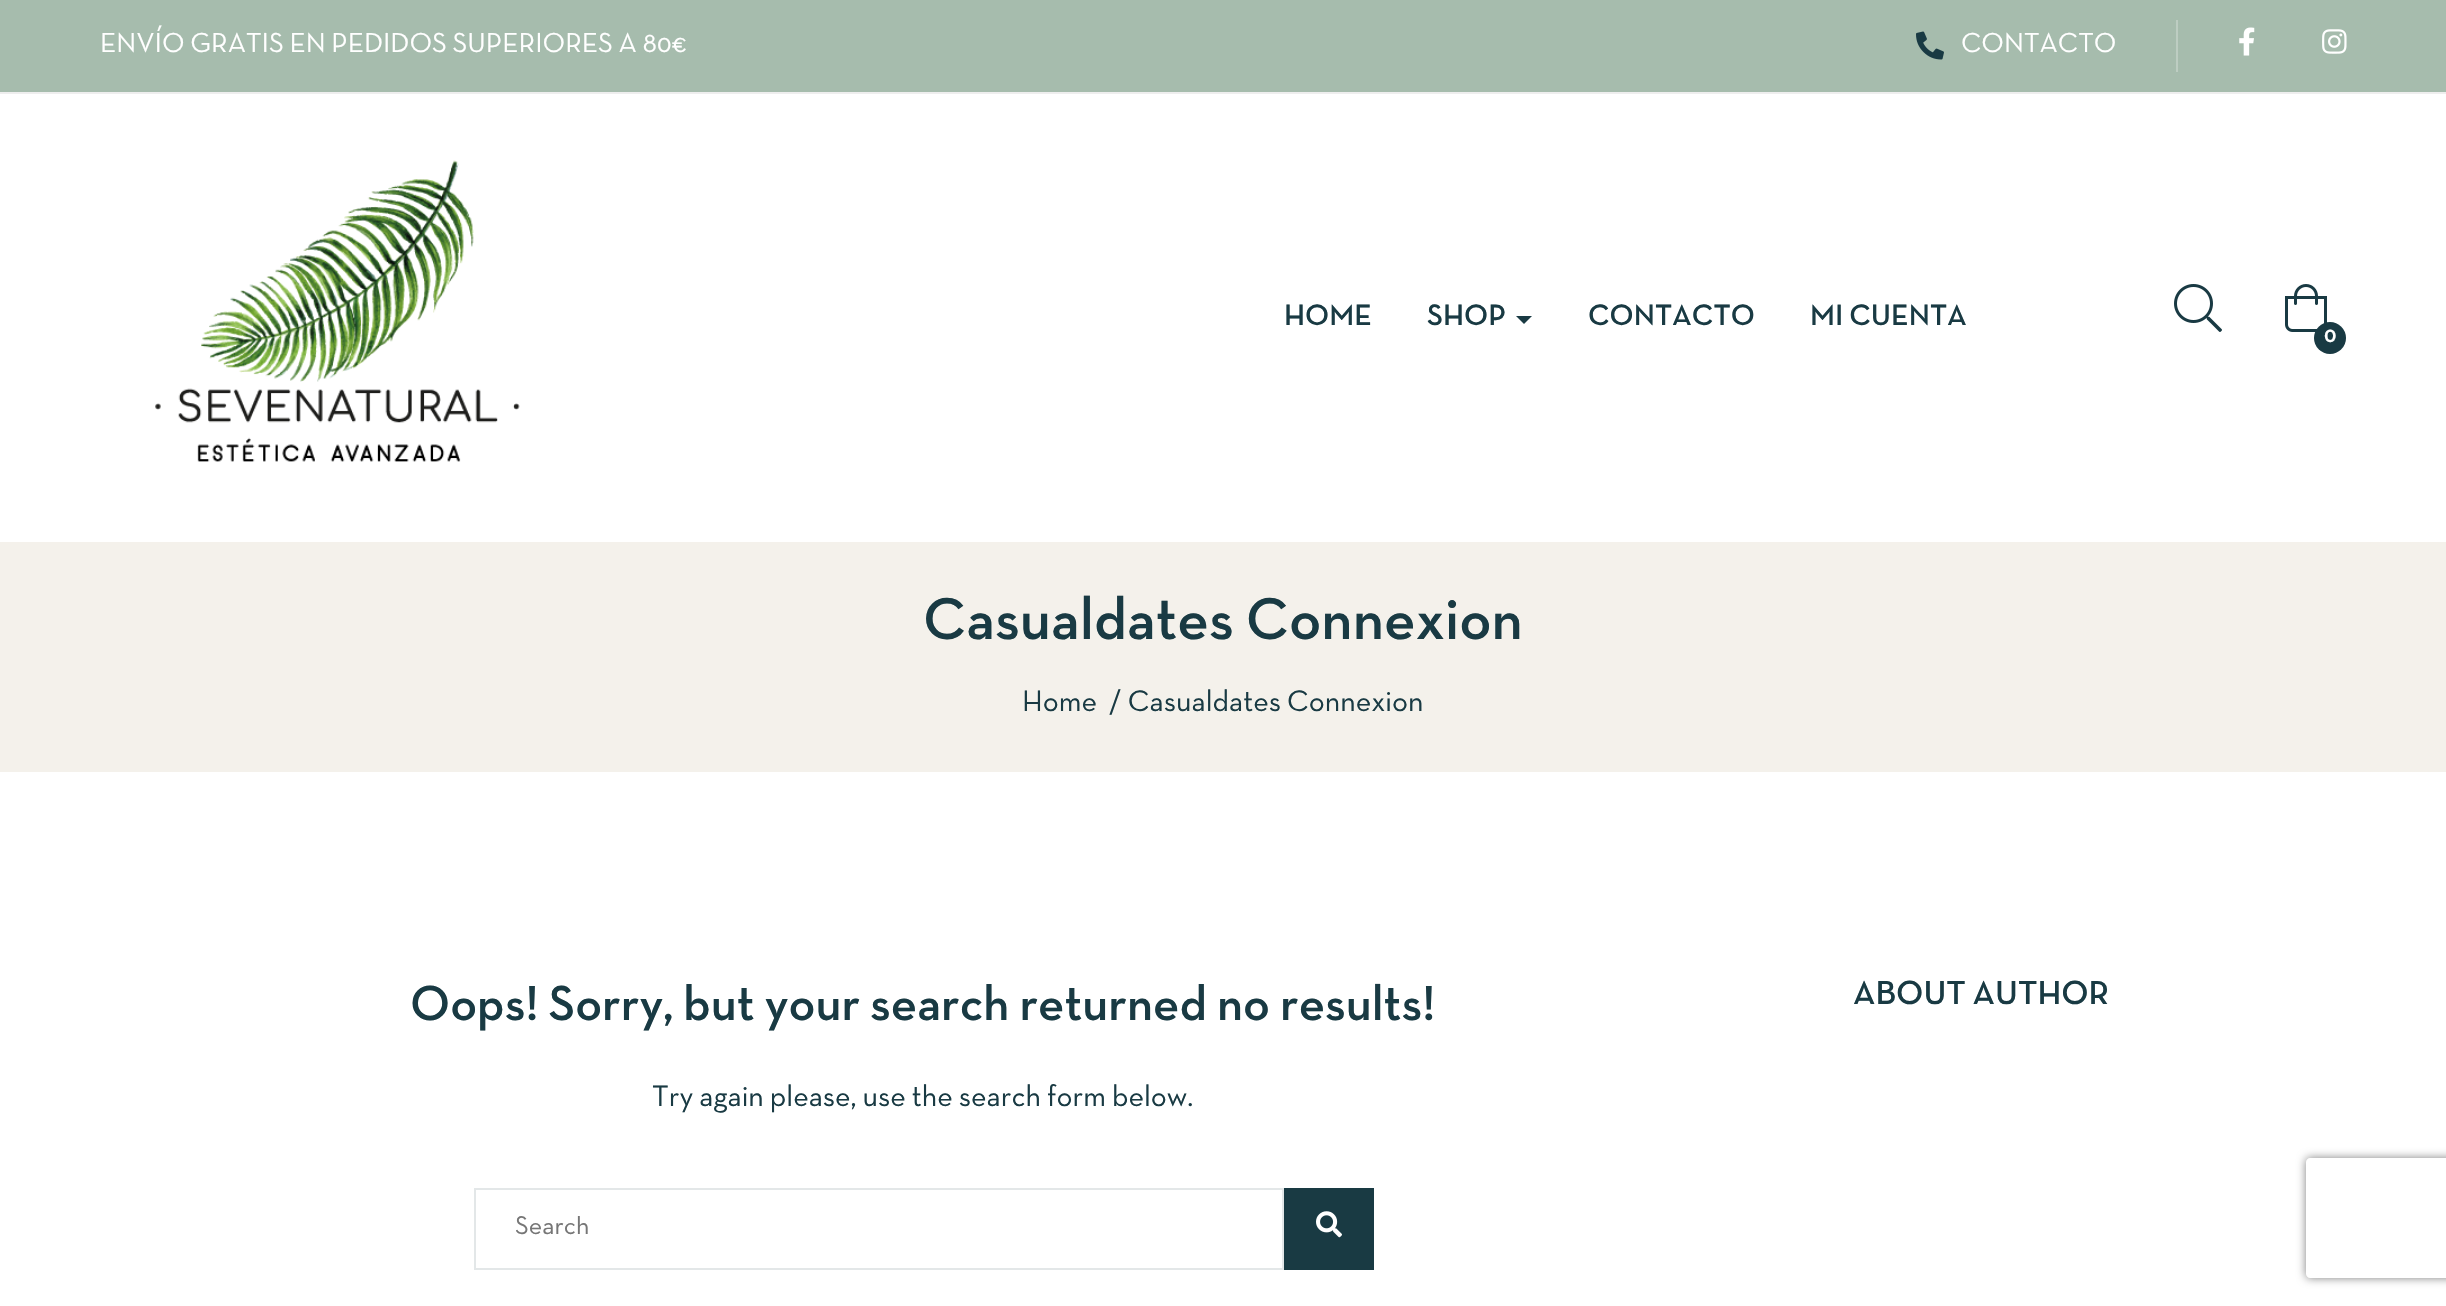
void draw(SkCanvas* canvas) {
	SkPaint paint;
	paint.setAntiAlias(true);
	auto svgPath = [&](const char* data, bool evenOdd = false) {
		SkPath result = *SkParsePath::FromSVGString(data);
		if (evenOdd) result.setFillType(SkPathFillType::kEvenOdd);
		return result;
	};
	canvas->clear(0xffffffff);
	paint.setColor(0xffa6bcad);
	canvas->drawRect(SkRect::MakeXYWH(0, 0, 2446, 92), paint);
	paint.setColor(0xffeeeeee);
	canvas->drawRect(SkRect::MakeXYWH(0, 92, 2446, 2), paint);
	SkFont f1(fontMgr->matchFamilyStyle("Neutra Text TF", SkFontStyle::Normal()), 28);
	f1.setSubpixel(true);
	paint.setColor(0xffffffff);
	canvas->drawString("ENVÍO GRATIS EN PEDIDOS SUPERIORES A 80€", 100, 52, f1, paint);
	paint.setColor(0xffbdcdc2);
	canvas->drawRect(SkRect::MakeXYWH(2176, 20, 2, 52), paint);
	canvas->drawImageRect(SkImages::DeferredFromEncodedData(SkData::MakeFromFileName("img1.png")), SkRect::MakeXYWH(1916, 31, 28, 29), SkSamplingOptions());
	paint.setColor(0xffffffff);
	canvas->drawString("CONTACTO", 1961, 52, f1, paint);
	canvas->drawImageRect(SkImages::DeferredFromEncodedData(SkData::MakeFromFileName("img2.png")), SkRect::MakeXYWH(2239, 27, 16, 29), SkSamplingOptions());
	canvas->drawImageRect(SkImages::DeferredFromEncodedData(SkData::MakeFromFileName("img3.png")), SkRect::MakeXYWH(2322, 29, 25, 25), SkSamplingOptions());
	canvas->drawImageRect(SkImages::DeferredFromEncodedData(SkData::MakeFromFileName("img4.png")), SkRect::MakeXYWH(155, 160, 365, 302), SkSamplingOptions());
	SkFont f2(fontMgr->matchFamilyStyle("Neutra Text TF", SkFontStyle(500, SkFontStyle::kNormal_Width, SkFontStyle::kUpright_Slant)), 30);
	f2.setSubpixel(true);
	paint.setColor(0xff193a43);
	canvas->drawString("HOME", 1284, 325, f2, paint);
	canvas->drawString("SHOP", 1427, 325, f2, paint);
	canvas->drawPath(svgPath("M1516 316H1532L1524 324Z"), paint);
	canvas->drawString("CONTACTO", 1588, 325, f2, paint);
	canvas->drawString("MI CUENTA", 1810, 325, f2, paint);
	canvas->drawImageRect(SkImages::DeferredFromEncodedData(SkData::MakeFromFileName("img5.png")), SkRect::MakeXYWH(2174, 284, 48, 48), SkSamplingOptions());
	canvas->drawImageRect(SkImages::DeferredFromEncodedData(SkData::MakeFromFileName("img6.png")), SkRect::MakeXYWH(2285, 284, 42, 48), SkSamplingOptions());
	canvas->drawCircle(2330, 338, 16, paint);
	SkFont f3(fontMgr->matchFamilyStyle("Neutra Text TF", SkFontStyle(500, SkFontStyle::kNormal_Width, SkFontStyle::kUpright_Slant)), 24);
	f3.setSubpixel(true);
	paint.setColor(0xffffffff);
	canvas->drawString("0", 2324, 342, f3, paint);
	paint.setColor(0xfff4f1eb);
	canvas->drawRect(SkRect::MakeXYWH(0, 542, 2446, 230), paint);
	SkFont f4(fontMgr->matchFamilyStyle("Neutra Text TF", SkFontStyle(500, SkFontStyle::kNormal_Width, SkFontStyle::kUpright_Slant)), 60);
	f4.setSubpixel(true);
	paint.setColor(0xff193a43);
	canvas->drawString("Casualdates Connexion", 923, 639, f4, paint);
	SkFont f5(fontMgr->matchFamilyStyle("Neutra Text TF", SkFontStyle::Normal()), 30);
	f5.setSubpixel(true);
	canvas->drawString("Home", 1022, 711, f5, paint);
	canvas->drawString("/ Casualdates Connexion", 1109, 711, f5, paint);
	SkFont f6(fontMgr->matchFamilyStyle("Neutra Text TF", SkFontStyle(500, SkFontStyle::kNormal_Width, SkFontStyle::kUpright_Slant)), 50);
	f6.setSubpixel(true);
	canvas->drawString("Oops! Sorry, but your search returned no results!", 410, 1020, f6, paint);
	canvas->drawString("Try again please, use the search form below.", 652, 1106, f5, paint);
	paint.setStroke(true);
	paint.setStrokeWidth(2);
	paint.setColor(0xffe3e7e8);
	canvas->drawRect(SkRect::MakeXYWH(475, 1189, 808, 80), paint);
	canvas->save();
	canvas->clipRect(SkRect::MakeXYWH(516, 1216, 726, 26));
	SkFont f7(fontMgr->matchFamilyStyle("Neutra Text TF", SkFontStyle::Normal()), 26);
	f7.setSubpixel(true);
	paint.setStroke(false);
	paint.setColor(0xff767676);
	canvas->drawString("Search", 515, 1234, f7, paint);
	canvas->restore();
	paint.setColor(0xff193a43);
	canvas->drawRect(SkRect::MakeXYWH(1284, 1188, 90, 82), paint);
	canvas->drawImageRect(SkImages::DeferredFromEncodedData(SkData::MakeFromFileName("img7.png")), SkRect::MakeXYWH(1316, 1211, 26, 27), SkSamplingOptions());
	SkFont f8(fontMgr->matchFamilyStyle("Neutra Text TF", SkFontStyle(500, SkFontStyle::kNormal_Width, SkFontStyle::kUpright_Slant)), 34);
	f8.setSubpixel(true);
	canvas->drawString("ABOUT AUTHOR", 1853, 1004, f8, paint);
	canvas->save();
	canvas->clipPath(svgPath("M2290 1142H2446V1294H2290ZM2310 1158H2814C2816 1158 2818 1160 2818 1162V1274C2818 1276 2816 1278 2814 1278H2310C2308 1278 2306 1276 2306 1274V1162C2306 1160 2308 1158 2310 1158Z", true), true);
	paint.setColor(0xff808080);
	paint.setMaskFilter(SkMaskFilter::MakeBlur(kNormal_SkBlurStyle, 5));
	canvas->drawRoundRect(SkRect::MakeXYWH(2306, 1158, 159, 120), 4, 4, paint);
	paint.setMaskFilter(nullptr);
	canvas->restore();
}
